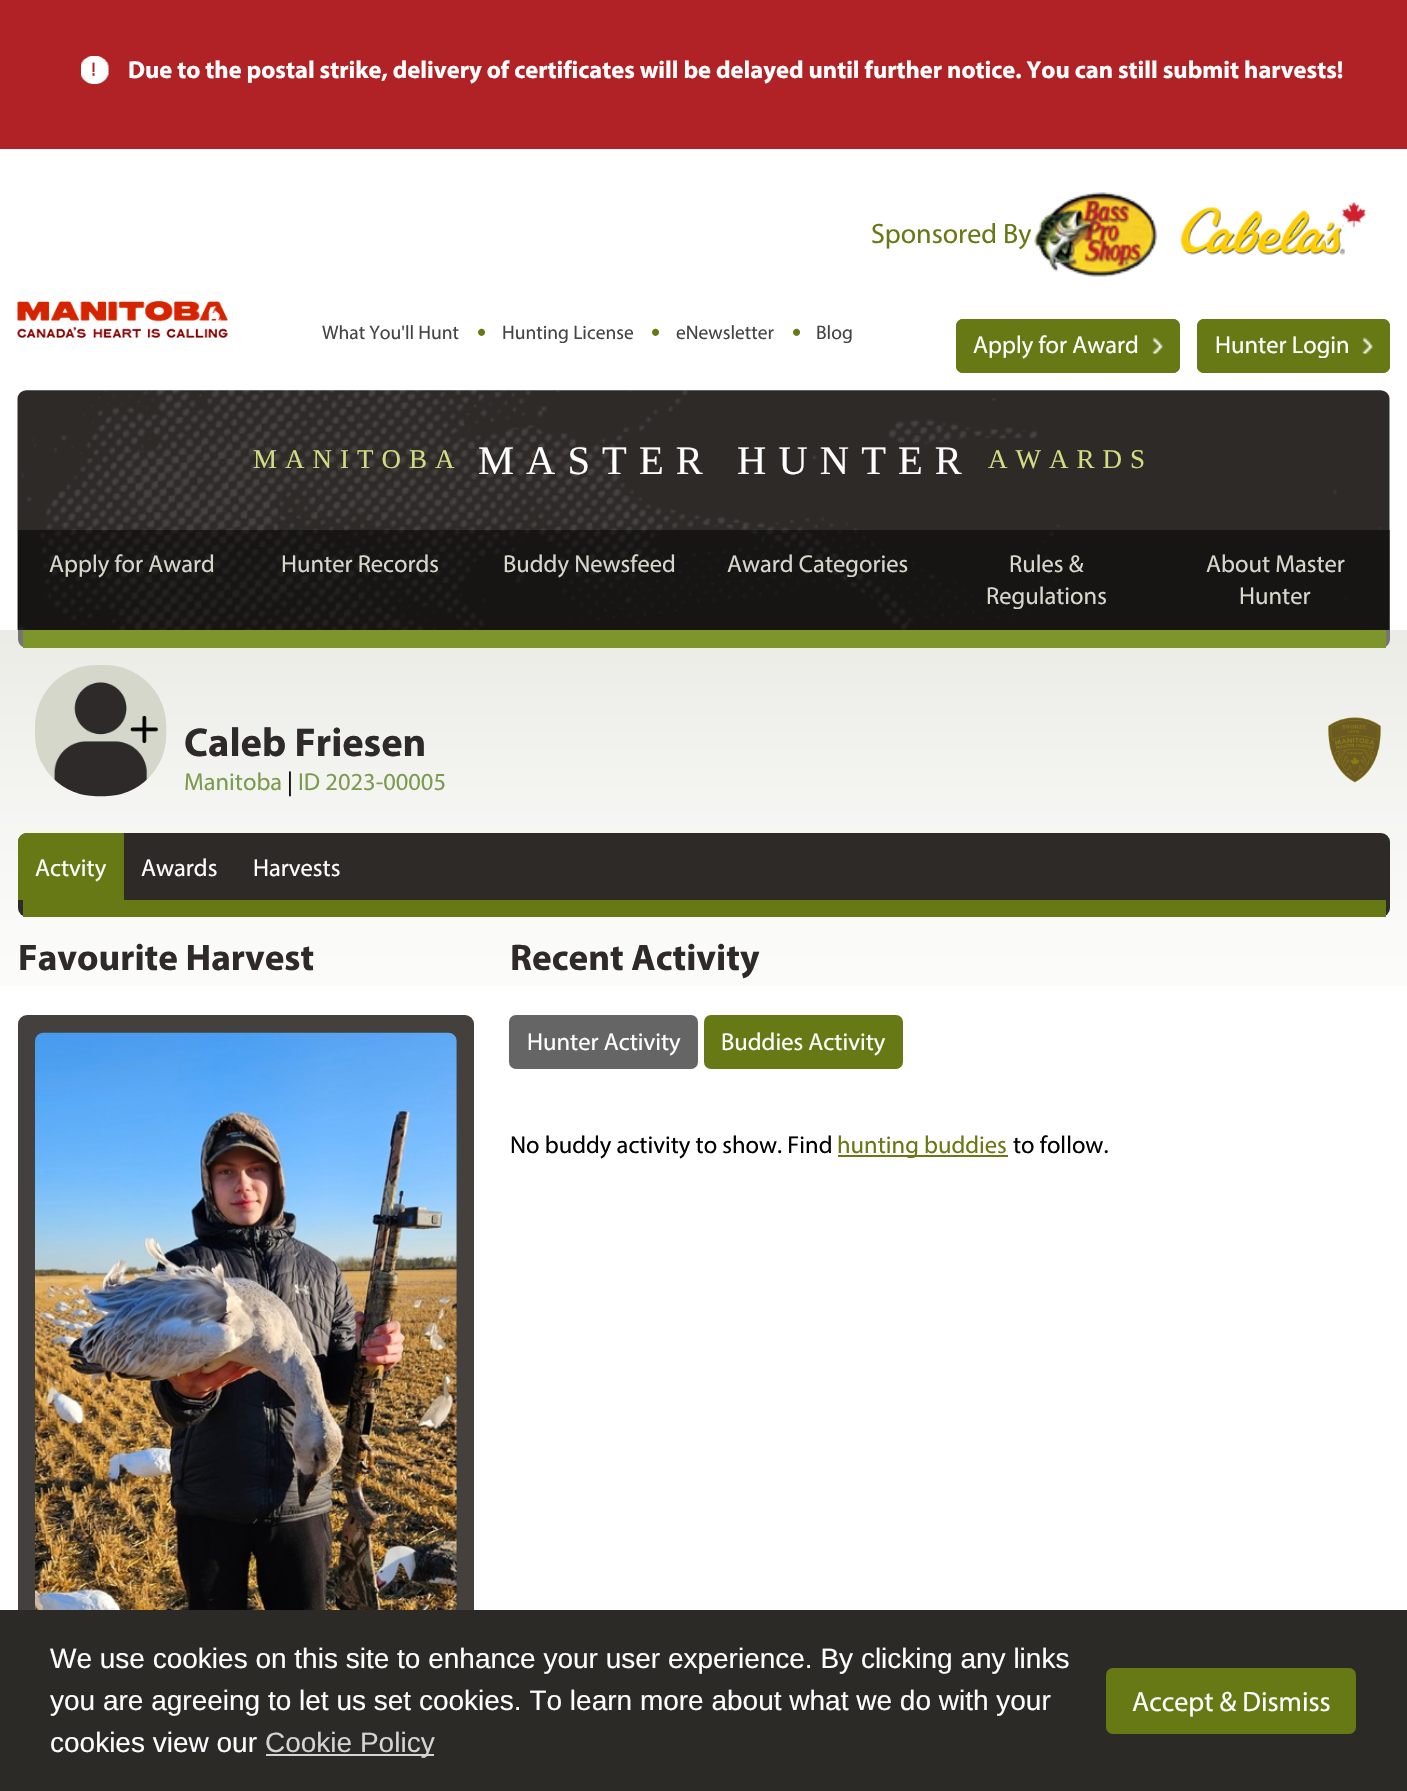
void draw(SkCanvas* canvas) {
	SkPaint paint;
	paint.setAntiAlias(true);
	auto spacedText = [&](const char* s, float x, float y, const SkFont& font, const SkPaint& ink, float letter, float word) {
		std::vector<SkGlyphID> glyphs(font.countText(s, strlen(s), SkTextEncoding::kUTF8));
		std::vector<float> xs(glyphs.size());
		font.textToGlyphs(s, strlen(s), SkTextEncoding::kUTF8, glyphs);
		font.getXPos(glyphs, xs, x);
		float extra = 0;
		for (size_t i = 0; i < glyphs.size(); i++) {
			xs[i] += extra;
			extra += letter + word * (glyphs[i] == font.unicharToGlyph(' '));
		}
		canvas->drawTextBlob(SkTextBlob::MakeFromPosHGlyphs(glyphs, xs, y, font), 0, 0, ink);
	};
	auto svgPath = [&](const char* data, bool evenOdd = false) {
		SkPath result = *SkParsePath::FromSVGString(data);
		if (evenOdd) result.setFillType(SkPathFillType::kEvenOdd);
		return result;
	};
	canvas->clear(0xffffffff);
	paint.setColor(0xffb12226);
	canvas->drawRect(SkRect::MakeXYWH(0, 0, 1407, 149), paint);
	canvas->drawImageRect(SkImages::DeferredFromEncodedData(SkData::MakeFromFileName("img1.png")), SkRect::MakeXYWH(81, 56, 28, 28), SkSamplingOptions());
	SkFont f1(fontMgr->matchFamilyStyle("Myriad", SkFontStyle::Bold()), 24.5);
	f1.setSubpixel(true);
	paint.setColor(0xffffffff);
	canvas->drawString("Due to the postal strike, delivery of certificates will be delayed until further notice. You can still submit harvests!", 128, 78, f1, paint);
	SkFont f2(fontMgr->matchFamilyStyle("Myriad", SkFontStyle::Normal()), 28);
	f2.setSubpixel(true);
	paint.setColor(0xff677915);
	canvas->drawString("Sponsored By", 871, 243, f2, paint);
	canvas->drawImageRect(SkImages::DeferredFromEncodedData(SkData::MakeFromFileName("img2.png")), SkRect::MakeXYWH(1033, 192, 125, 85), SkSamplingOptions());
	canvas->drawImageRect(SkImages::DeferredFromEncodedData(SkData::MakeFromFileName("img3.png")), SkRect::MakeXYWH(1180, 202, 186, 53), SkSamplingOptions());
	canvas->drawImageRect(SkImages::DeferredFromEncodedData(SkData::MakeFromFileName("img4.png")), SkRect::MakeXYWH(17, 301, 211, 37), SkSamplingOptions());
	SkFont f3(fontMgr->matchFamilyStyle("Myriad", SkFontStyle::Normal()), 19.5);
	f3.setSubpixel(true);
	paint.setColor(0xff444444);
	canvas->drawString("What You'll Hunt", 322, 339, f3, paint);
	SkFont f4(fontMgr->matchFamilyStyle("Liberation Sans", SkFontStyle::Normal()), 26);
	f4.setSubpixel(true);
	paint.setColor(0xff677915);
	canvas->drawString("•", 477, 341, f4, paint);
	paint.setColor(0xff444444);
	canvas->drawString("Hunting License", 502, 339, f3, paint);
	paint.setColor(0xff677915);
	canvas->drawString("•", 651, 341, f4, paint);
	paint.setColor(0xff444444);
	canvas->drawString("eNewsletter", 676, 339, f3, paint);
	paint.setColor(0xff677915);
	canvas->drawString("•", 792, 341, f4, paint);
	paint.setColor(0xff444444);
	canvas->drawString("Blog", 816, 339, f3, paint);
	paint.setColor(0xff677915);
	canvas->drawRoundRect(SkRect::MakeXYWH(956, 319, 224, 54), 7, 7, paint);
	canvas->drawImageRect(SkImages::DeferredFromEncodedData(SkData::MakeFromFileName("img5.png")), SkRect::MakeXYWH(1152, 337, 11, 17), SkSamplingOptions());
	paint.setStroke(true);
	paint.setStrokeWidth(2);
	canvas->drawRoundRect(SkRect::MakeXYWH(957, 320, 222, 52), 6, 6, paint);
	SkFont f5(fontMgr->matchFamilyStyle("Myriad", SkFontStyle::Normal()), 24.5);
	f5.setSubpixel(true);
	paint.setStroke(false);
	paint.setColor(0xffffffff);
	canvas->drawString("Apply for Award", 973, 353, f5, paint);
	paint.setColor(0xff677915);
	canvas->drawRoundRect(SkRect::MakeXYWH(1197, 319, 193, 54), 7, 7, paint);
	canvas->drawImageRect(SkImages::DeferredFromEncodedData(SkData::MakeFromFileName("img5.png")), SkRect::MakeXYWH(1362, 337, 11, 17), SkSamplingOptions());
	paint.setStroke(true);
	canvas->drawRoundRect(SkRect::MakeXYWH(1198, 320, 191, 52), 6, 6, paint);
	paint.setStroke(false);
	paint.setColor(0xffffffff);
	canvas->drawString("Hunter Login", 1215, 353, f5, paint);
	canvas->drawImageRect(SkImages::DeferredFromEncodedData(SkData::MakeFromFileName("img6.png")), SkRect::MakeXYWH(17, 390, 1373, 240), SkSamplingOptions());
	SkFont f6(fontMgr->matchFamilyStyle("Liberation Serif", SkFontStyle::Normal()), 27);
	f6.setSubpixel(true);
	paint.setColor(0xffcfde82);
	spacedText("MANITOBA", 253, 468, f6, paint, 8, 0);
	SkFont f7(fontMgr->matchFamilyStyle("Liberation Serif", SkFontStyle::Normal()), 40.5);
	f7.setSubpixel(true);
	paint.setColor(0xffffffff);
	spacedText("MASTER HUNTER", 478, 474, f7, paint, 12.1, 0);
	paint.setColor(0xffcfde82);
	spacedText("AWARDS", 988, 468, f6, paint, 8, 0);
	canvas->drawImageRect(SkImages::DeferredFromEncodedData(SkData::MakeFromFileName("img7.png")), SkRect::MakeXYWH(0, 630, 1407, 356), SkSamplingOptions());
	paint.setColor(0x80000000);
	canvas->drawPath(svgPath("M18 530H1390V639C1390 644 1386 648 1381 648H27C22 648 18 644 18 639Z"), paint);
	paint.setColor(0xff7d952a);
	canvas->drawRect(SkRect::MakeXYWH(23, 630, 1363, 18), paint);
	paint.setColor(0xffd5d8cb);
	canvas->drawString("Apply for Award", 49, 572, f5, paint);
	canvas->drawString("Hunter Records", 281, 572, f5, paint);
	canvas->drawString("Buddy Newsfeed", 503, 572, f5, paint);
	canvas->drawString("Award Categories", 727, 572, f5, paint);
	canvas->drawString("Rules &", 1009, 572, f5, paint);
	canvas->drawString("Regulations", 986, 604, f5, paint);
	canvas->drawString("About Master", 1206, 572, f5, paint);
	canvas->drawString("Hunter", 1239, 604, f5, paint);
	canvas->drawImageRect(SkImages::DeferredFromEncodedData(SkData::MakeFromFileName("img8.png")), SkRect::MakeXYWH(35, 665, 132, 132), SkSamplingOptions());
	SkFont f8(fontMgr->matchFamilyStyle("Myriad", SkFontStyle::Bold()), 40.5);
	f8.setSubpixel(true);
	paint.setColor(0xff2e2a29);
	canvas->drawString("Caleb Friesen", 184, 756, f8, paint);
	paint.setColor(0xff7d9b50);
	canvas->drawString("Manitoba", 184, 790, f5, paint);
	paint.setColor(0xff000000);
	canvas->drawString("|", 287, 790, f5, paint);
	paint.setColor(0xff7d9b50);
	canvas->drawString("ID 2023-00005", 298, 790, f5, paint);
	canvas->drawImageRect(SkImages::DeferredFromEncodedData(SkData::MakeFromFileName("img9.png")), SkRect::MakeXYWH(1328, 717, 53, 66), SkSamplingOptions());
	paint.setColor(0xff2d2a28);
	canvas->drawRoundRect(SkRect::MakeXYWH(18, 833, 1372, 84), 9, 9, paint);
	paint.setColor(0xff677915);
	canvas->drawRect(SkRect::MakeXYWH(23, 900, 1363, 17), paint);
	canvas->drawPath(svgPath("M27 833H124V900H18V842C18 837 22 833 27 833Z"), paint);
	paint.setColor(0xffffffff);
	canvas->drawString("Actvity", 35, 876, f5, paint);
	canvas->drawString("Awards", 141, 876, f5, paint);
	canvas->drawString("Harvests", 253, 876, f5, paint);
	SkFont f9(fontMgr->matchFamilyStyle("Myriad", SkFontStyle::Bold()), 37.25);
	f9.setSubpixel(true);
	paint.setColor(0xff2e2a29);
	canvas->drawString("Favourite Harvest", 18, 970, f9, paint);
	paint.setColor(0xff44403e);
	canvas->drawRoundRect(SkRect::MakeXYWH(18, 1015, 456, 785), 9, 9, paint);
	canvas->drawImageRect(SkImages::DeferredFromEncodedData(SkData::MakeFromFileName("img10.png")), SkRect::MakeXYWH(35, 1032, 422, 578), SkSamplingOptions());
	paint.setColor(0xff2e2a29);
	canvas->drawString("Recent Activity", 510, 970, f9, paint);
	paint.setColor(0xff656565);
	canvas->drawRoundRect(SkRect::MakeXYWH(510, 1016, 187, 52), 6, 6, paint);
	paint.setStroke(true);
	canvas->drawRoundRect(SkRect::MakeXYWH(510, 1016, 187, 52), 6, 6, paint);
	paint.setStroke(false);
	paint.setColor(0xffffffff);
	canvas->drawString("Hunter Activity", 527, 1050, f5, paint);
	paint.setColor(0xff677915);
	canvas->drawRoundRect(SkRect::MakeXYWH(705, 1016, 197, 52), 6, 6, paint);
	paint.setStroke(true);
	canvas->drawRoundRect(SkRect::MakeXYWH(705, 1016, 197, 52), 6, 6, paint);
	paint.setStroke(false);
	paint.setColor(0xffffffff);
	canvas->drawString("Buddies Activity", 721, 1050, f5, paint);
	paint.setColor(0xff000000);
	canvas->drawString("No buddy activity to show. Find", 510, 1153, f5, paint);
	paint.setColor(0xff677915);
	canvas->drawRect(SkRect::MakeXYWH(838, 1155, 170, 2), paint);
	canvas->drawString("hunting buddies", 837, 1153, f5, paint);
	paint.setColor(0xff000000);
	canvas->drawString("to follow.", 1013, 1153, f5, paint);
	paint.setColor(0xff2c2a27);
	canvas->drawRect(SkRect::MakeXYWH(0, 1610, 1407, 181), paint);
	SkFont f10(fontMgr->matchFamilyStyle("Liberation Sans", SkFontStyle::Normal()), 28);
	f10.setSubpixel(true);
	paint.setColor(0xffffffff);
	canvas->drawString("We use cookies on this site to enhance your user experience. By clicking any links", 50, 1668, f10, paint);
	canvas->drawString("you are agreeing to let us set cookies. To learn more about what we do with your", 50, 1710, f10, paint);
	canvas->drawString("cookies view our", 50, 1752, f10, paint);
	paint.setColor(0xffd5d4d4);
	canvas->drawRect(SkRect::MakeXYWH(266, 1754, 168, 2), paint);
	canvas->drawString("Cookie Policy", 265, 1752, f10, paint);
	paint.setColor(0xff667914);
	canvas->drawRoundRect(SkRect::MakeXYWH(1106, 1668, 250, 66), 7, 7, paint);
	paint.setColor(0xffffffff);
	canvas->drawString("Accept & Dismiss", 1132, 1711, f2, paint);
}
